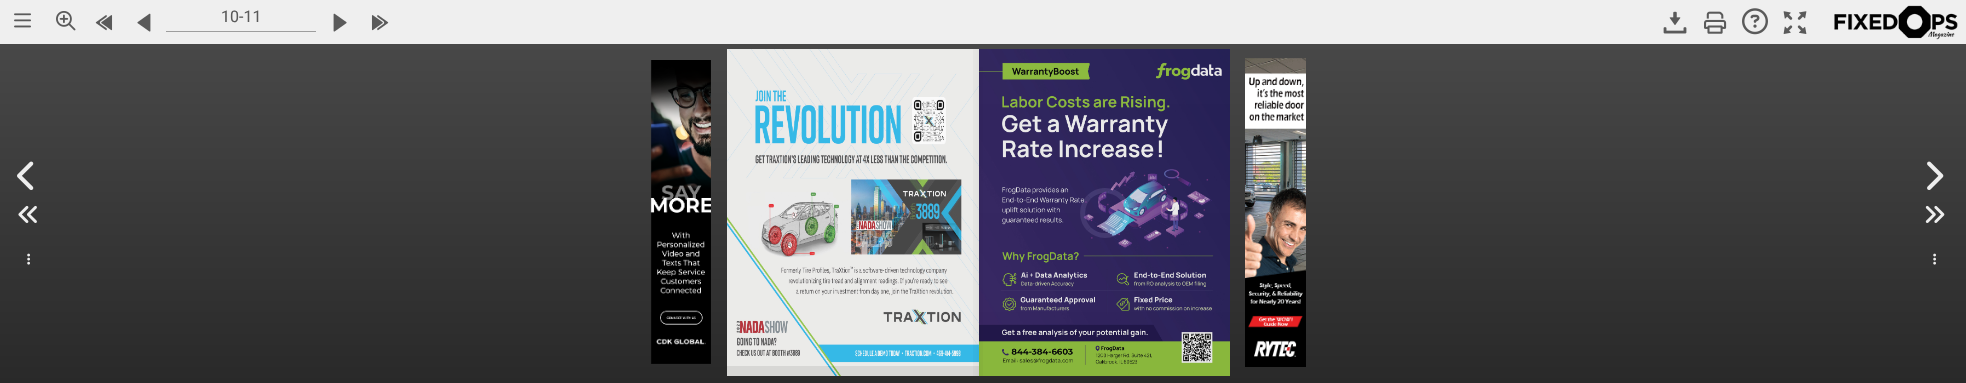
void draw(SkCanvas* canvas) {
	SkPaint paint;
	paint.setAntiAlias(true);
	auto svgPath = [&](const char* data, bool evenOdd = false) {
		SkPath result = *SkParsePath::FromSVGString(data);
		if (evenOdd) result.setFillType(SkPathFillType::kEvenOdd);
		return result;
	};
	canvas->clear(0xffffffff);
	{
		const SkColor colors[] = {0xff4c4c4c, 0xff292929};
		const float stops[] = {0, 1};
		const SkPoint ends[] = {{983, 0}, {983, 383}};
		paint.setShader(SkGradientShader::MakeLinear(ends, colors, stops, 2, SkTileMode::kClamp));
		paint.setAlpha(255);
	}
	canvas->drawRect(SkRect::MakeXYWH(0, 44, 1966, 339), paint);
	paint.setShader(nullptr);
	paint.setColor(0xffefefef);
	canvas->drawRect(SkRect::MakeXYWH(0, 0, 1966, 44), paint);
	canvas->drawImageRect(SkImages::DeferredFromEncodedData(SkData::MakeFromFileName("img1.png")), SkRect::MakeXYWH(14, 13, 17, 15), SkSamplingOptions());
	canvas->drawImageRect(SkImages::DeferredFromEncodedData(SkData::MakeFromFileName("img2.png")), SkRect::MakeXYWH(56, 11, 20, 20), SkSamplingOptions());
	canvas->drawImageRect(SkImages::DeferredFromEncodedData(SkData::MakeFromFileName("img3.png")), SkRect::MakeXYWH(95, 15, 18, 16), SkSamplingOptions());
	canvas->drawImageRect(SkImages::DeferredFromEncodedData(SkData::MakeFromFileName("img4.png")), SkRect::MakeXYWH(137, 13, 14, 19), SkSamplingOptions());
	paint.setColor(0xff9e9e9e);
	canvas->drawRect(SkRect::MakeXYWH(166, 31, 150, 1), paint);
	SkFont f1(fontMgr->matchFamilyStyle("Roboto", SkFontStyle::Normal()), 16);
	f1.setSubpixel(true);
	paint.setColor(0xff5a5a5a);
	canvas->drawString("10-11", 221, 22, f1, paint);
	canvas->drawImageRect(SkImages::DeferredFromEncodedData(SkData::MakeFromFileName("img5.png")), SkRect::MakeXYWH(333, 13, 14, 19), SkSamplingOptions());
	canvas->drawImageRect(SkImages::DeferredFromEncodedData(SkData::MakeFromFileName("img6.png")), SkRect::MakeXYWH(371, 15, 18, 16), SkSamplingOptions());
	canvas->drawImageRect(SkImages::DeferredFromEncodedData(SkData::MakeFromFileName("img7.png")), SkRect::MakeXYWH(1663, 11, 24, 23), SkSamplingOptions());
	canvas->drawImageRect(SkImages::DeferredFromEncodedData(SkData::MakeFromFileName("img8.png")), SkRect::MakeXYWH(1704, 11, 23, 23), SkSamplingOptions());
	canvas->drawImageRect(SkImages::DeferredFromEncodedData(SkData::MakeFromFileName("img9.png")), SkRect::MakeXYWH(1742, 8, 26, 27), SkSamplingOptions());
	canvas->drawImageRect(SkImages::DeferredFromEncodedData(SkData::MakeFromFileName("img10.png")), SkRect::MakeXYWH(1783, 11, 24, 23), SkSamplingOptions());
	canvas->drawImageRect(SkImages::DeferredFromEncodedData(SkData::MakeFromFileName("img11.png")), SkRect::MakeXYWH(1834, 5, 124, 35), SkSamplingOptions());
	canvas->drawImageRect(SkImages::DeferredFromEncodedData(SkData::MakeFromFileName("img12.png")), SkRect::MakeXYWH(17, 161, 17, 29), SkSamplingOptions());
	canvas->drawImageRect(SkImages::DeferredFromEncodedData(SkData::MakeFromFileName("img13.png")), SkRect::MakeXYWH(18, 205, 19, 18), SkSamplingOptions());
	canvas->drawImageRect(SkImages::DeferredFromEncodedData(SkData::MakeFromFileName("img14.png")), SkRect::MakeXYWH(27, 253, 3, 12), SkSamplingOptions());
	canvas->drawImageRect(SkImages::DeferredFromEncodedData(SkData::MakeFromFileName("img15.png")), SkRect::MakeXYWH(650, 60, 61, 304), SkSamplingOptions());
	canvas->drawImageRect(SkImages::DeferredFromEncodedData(SkData::MakeFromFileName("img16.png")), SkRect::MakeXYWH(727, 49, 252, 317), SkSamplingOptions());
	canvas->drawImageRect(SkImages::DeferredFromEncodedData(SkData::MakeFromFileName("img17.png")), SkRect::MakeXYWH(727, 49, 252, 327), SkSamplingOptions());
	{
		const SkColor colors[] = {0x00000000, 0x0a000000};
		const float stops[] = {0.95, 1};
		const SkPoint ends[] = {{727, 214}, {979, 214}};
		paint.setShader(SkGradientShader::MakeLinear(ends, colors, stops, 2, SkTileMode::kClamp));
		paint.setAlpha(255);
	}
	canvas->drawRect(SkRect::MakeXYWH(973, 49, 6, 327), paint);
	paint.setStroke(true);
	paint.setStrokeWidth(5);
	paint.setShader(nullptr);
	paint.setColor(0xfffefefe);
	canvas->drawPath(svgPath("M1089 197C1094.5 192 1102 189.5 1109.5 191C1135.5 196 1132 235.5 1105 235.5C1099 235.5 1093.5 233 1089 229"), paint);
	paint.setColor(0xe6fdfdfd);
	canvas->drawPath(svgPath("M1089 229C1080.5 220 1080.5 206 1089 197"), paint);
	canvas->drawImageRect(SkImages::DeferredFromEncodedData(SkData::MakeFromFileName("img18.png")), SkRect::MakeXYWH(979, 49, 251, 327), SkSamplingOptions());
	paint.setStroke(false);
	{
		const SkColor colors[] = {0x00000000, 0x08000000};
		const float stops[] = {0.95, 1};
		const SkPoint ends[] = {{1230, 214}, {979, 214}};
		paint.setShader(SkGradientShader::MakeLinear(ends, colors, stops, 2, SkTileMode::kClamp));
		paint.setAlpha(255);
	}
	canvas->drawRect(SkRect::MakeXYWH(979, 67, 4, 309), paint);
	canvas->drawImageRect(SkImages::DeferredFromEncodedData(SkData::MakeFromFileName("img19.png")), SkRect::MakeXYWH(1245, 58, 61, 309), SkSamplingOptions());
	canvas->drawImageRect(SkImages::DeferredFromEncodedData(SkData::MakeFromFileName("img20.png")), SkRect::MakeXYWH(1927, 161, 17, 29), SkSamplingOptions());
	canvas->drawImageRect(SkImages::DeferredFromEncodedData(SkData::MakeFromFileName("img21.png")), SkRect::MakeXYWH(1925, 205, 20, 18), SkSamplingOptions());
	canvas->drawImageRect(SkImages::DeferredFromEncodedData(SkData::MakeFromFileName("img14.png")), SkRect::MakeXYWH(1933, 253, 3, 12), SkSamplingOptions());
}
